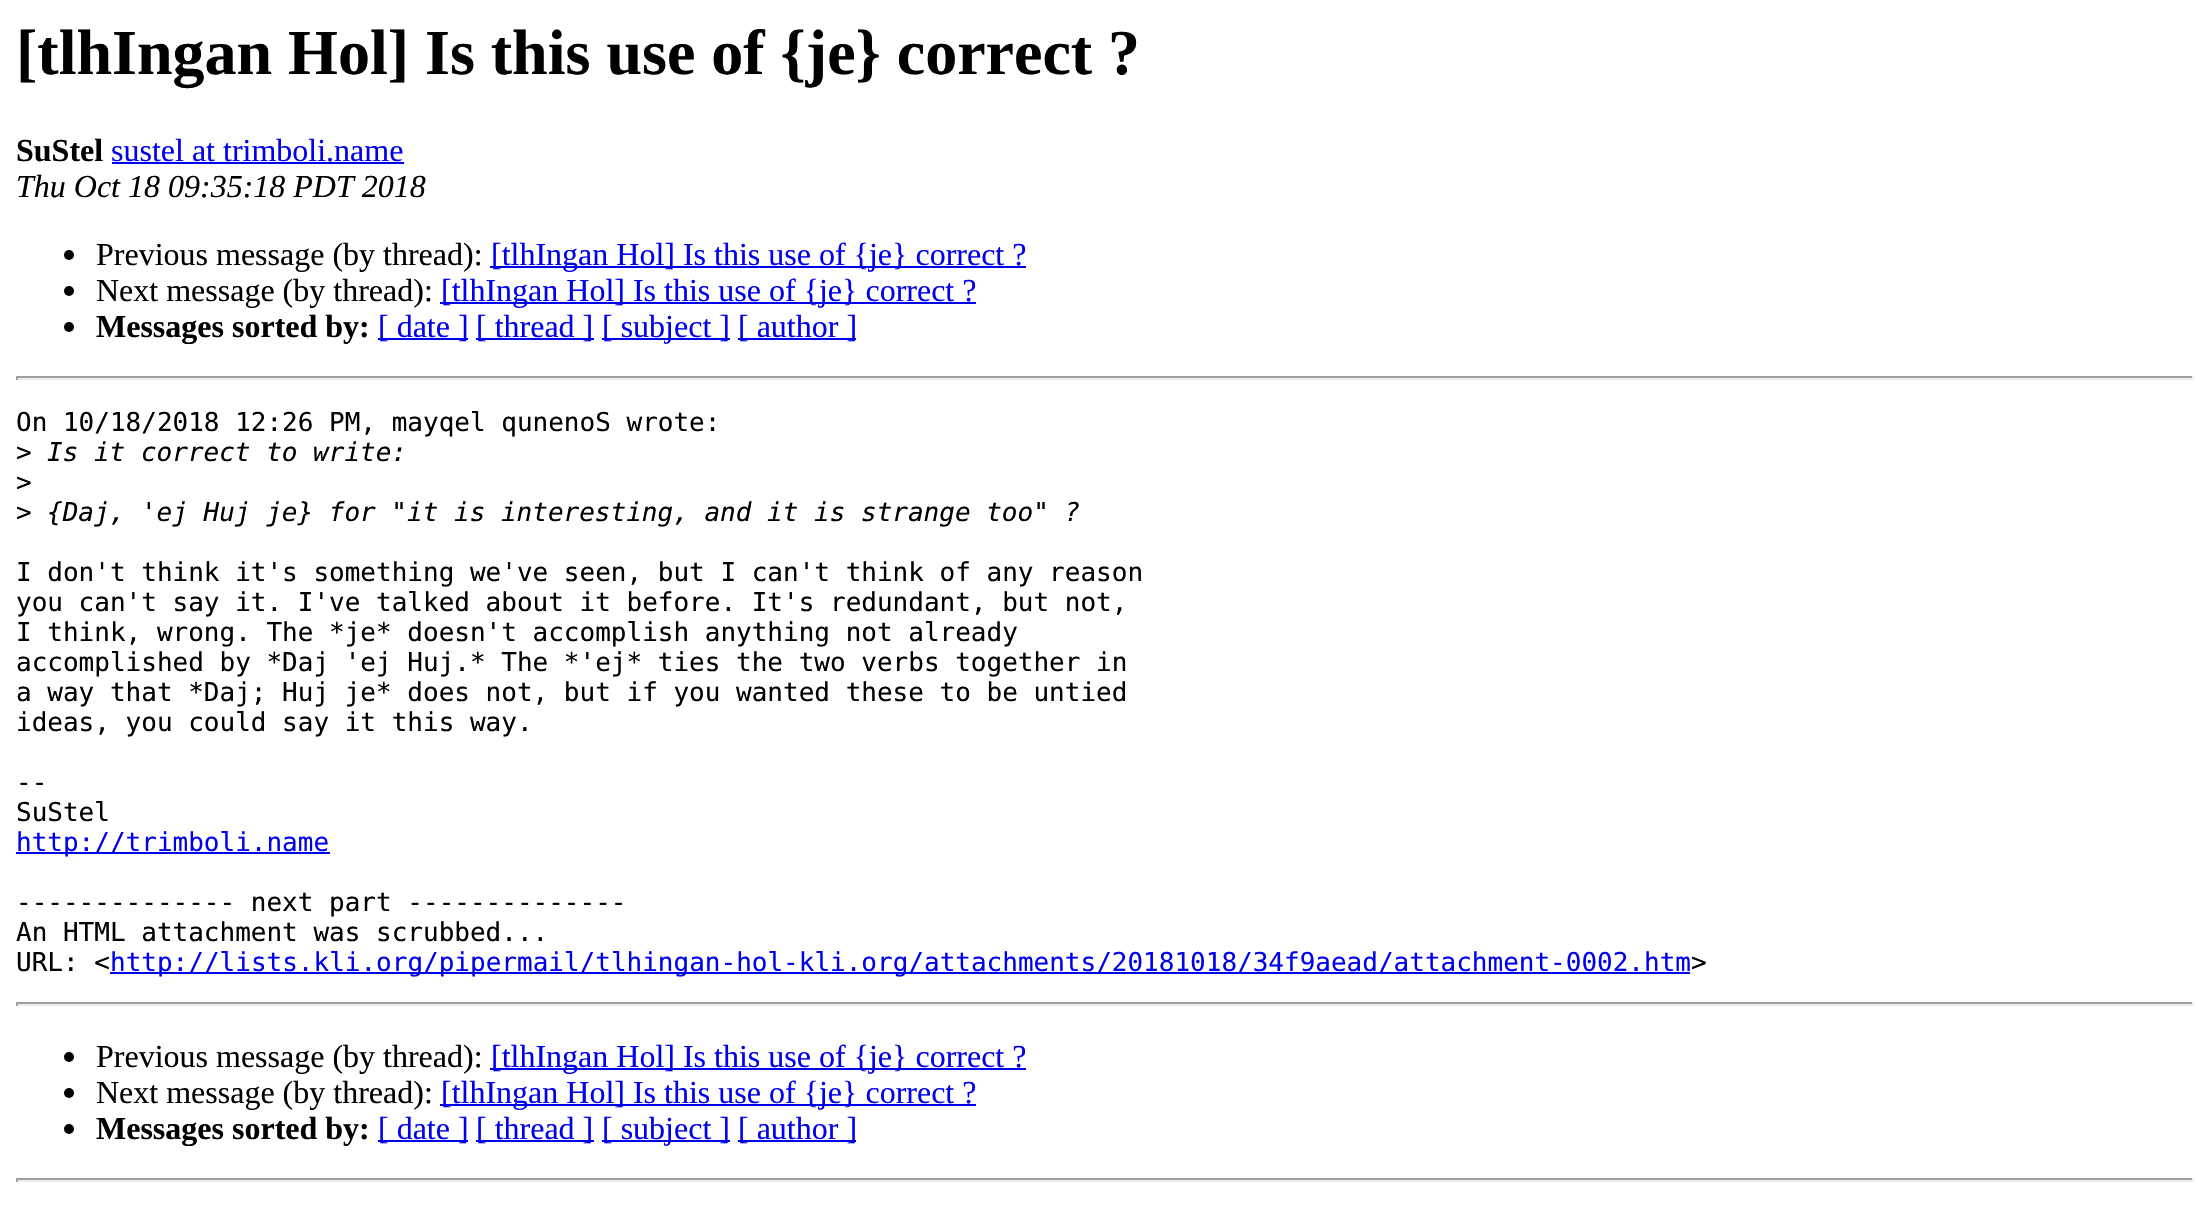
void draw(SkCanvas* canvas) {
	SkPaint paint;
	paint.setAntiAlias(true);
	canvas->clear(0xffffffff);
	SkFont f1(fontMgr->matchFamilyStyle("Liberation Serif", SkFontStyle::Bold()), 64);
	f1.setSubpixel(true);
	paint.setColor(0xff000000);
	canvas->drawString("[tlhIngan Hol] Is this use of {je} correct ?", 16, 74, f1, paint);
	SkFont f2(fontMgr->matchFamilyStyle("Liberation Serif", SkFontStyle::Bold()), 32);
	f2.setSubpixel(true);
	canvas->drawString("SuStel", 16, 161, f2, paint);
	SkFont f3(fontMgr->matchFamilyStyle("Liberation Serif", SkFontStyle::Normal()), 32);
	f3.setSubpixel(true);
	paint.setColor(0xff0000ee);
	canvas->drawString("sustel at trimboli.name", 111, 161, f3, paint);
	canvas->drawRect(SkRect::MakeXYWH(112, 162, 292, 2), paint);
	SkFont f4(fontMgr->matchFamilyStyle("Liberation Serif", SkFontStyle::Italic()), 32);
	f4.setSubpixel(true);
	paint.setColor(0xff000000);
	canvas->drawString("Thu Oct 18 09:35:18 PDT 2018", 16, 197, f4, paint);
	canvas->drawCircle(69, 255, 5, paint);
	canvas->drawString("Previous message (by thread):", 96, 265, f3, paint);
	paint.setColor(0xff0000ee);
	canvas->drawRect(SkRect::MakeXYWH(490, 266, 536, 2), paint);
	canvas->drawString("[tlhIngan Hol] Is this use of {je} correct ?", 491, 265, f3, paint);
	paint.setColor(0xff000000);
	canvas->drawCircle(69, 291, 5, paint);
	canvas->drawString("Next message (by thread):", 96, 301, f3, paint);
	paint.setColor(0xff0000ee);
	canvas->drawRect(SkRect::MakeXYWH(440, 302, 536, 2), paint);
	canvas->drawString("[tlhIngan Hol] Is this use of {je} correct ?", 441, 301, f3, paint);
	paint.setColor(0xff000000);
	canvas->drawCircle(69, 327, 5, paint);
	canvas->drawString("Messages sorted by:", 96, 337, f2, paint);
	paint.setColor(0xff0000ee);
	canvas->drawRect(SkRect::MakeXYWH(378, 338, 90, 2), paint);
	canvas->drawString("[ date ]", 378, 337, f3, paint);
	canvas->drawRect(SkRect::MakeXYWH(476, 338, 118, 2), paint);
	canvas->drawString("[ thread ]", 476, 337, f3, paint);
	canvas->drawRect(SkRect::MakeXYWH(602, 338, 128, 2), paint);
	canvas->drawString("[ subject ]", 602, 337, f3, paint);
	canvas->drawRect(SkRect::MakeXYWH(738, 338, 118, 2), paint);
	canvas->drawString("[ author ]", 738, 337, f3, paint);
	paint.setColor(0xff9f9f9f);
	canvas->drawRect(SkRect::MakeXYWH(16, 376, 2178, 2), paint);
	paint.setColor(0xffeeeeee);
	canvas->drawRect(SkRect::MakeXYWH(2192, 376, 2, 4), paint);
	canvas->drawRect(SkRect::MakeXYWH(16, 378, 2178, 2), paint);
	paint.setColor(0xff9f9f9f);
	canvas->drawRect(SkRect::MakeXYWH(16, 376, 2, 4), paint);
	SkFont f5(fontMgr->matchFamilyStyle("DejaVu Sans Mono", SkFontStyle::Normal()), 26);
	f5.setSubpixel(true);
	paint.setColor(0xff000000);
	canvas->drawString("On 10/18/2018 12:26 PM, mayqel qunenoS wrote:", 16, 431, f5, paint);
	canvas->drawString(">", 16, 461, f5, paint);
	SkFont f6(fontMgr->matchFamilyStyle("DejaVu Sans Mono", SkFontStyle::Italic()), 26);
	f6.setSubpixel(true);
	canvas->drawString("Is it correct to write:", 47, 461, f6, paint);
	canvas->drawString(">", 16, 491, f5, paint);
	canvas->drawString(">", 16, 521, f5, paint);
	canvas->drawString("{Daj, 'ej Huj je} for \"it is interesting, and it is strange too\" ?", 47, 521, f6, paint);
	canvas->drawString("I don't think it's something we've seen, but I can't think of any reason", 16, 581, f5, paint);
	canvas->drawString("you can't say it. I've talked about it before. It's redundant, but not,", 16, 611, f5, paint);
	canvas->drawString("I think, wrong. The *je* doesn't accomplish anything not already", 16, 641, f5, paint);
	canvas->drawString("accomplished by *Daj 'ej Huj.* The *'ej* ties the two verbs together in", 16, 671, f5, paint);
	canvas->drawString("a way that *Daj; Huj je* does not, but if you wanted these to be untied", 16, 701, f5, paint);
	canvas->drawString("ideas, you could say it this way.", 16, 731, f5, paint);
	canvas->drawString("--", 16, 791, f5, paint);
	canvas->drawString("SuStel", 16, 821, f5, paint);
	paint.setColor(0xff0000ee);
	canvas->drawRect(SkRect::MakeXYWH(16, 852, 314, 2), paint);
	canvas->drawString("http://trimboli.name", 16, 851, f5, paint);
	paint.setColor(0xff000000);
	canvas->drawString("-------------- next part --------------", 16, 911, f5, paint);
	canvas->drawString("An HTML attachment was scrubbed...", 16, 941, f5, paint);
	canvas->drawString("URL: <", 16, 971, f5, paint);
	paint.setColor(0xff0000ee);
	canvas->drawRect(SkRect::MakeXYWH(110, 972, 1580, 2), paint);
	canvas->drawString("http://lists.kli.org/pipermail/tlhingan-hol-kli.org/attachments/20181018/34f9aead/attachment-0002.htm", 110, 971, f5, paint);
	paint.setColor(0xff000000);
	canvas->drawString(">", 1691, 971, f5, paint);
	paint.setColor(0xff9f9f9f);
	canvas->drawRect(SkRect::MakeXYWH(16, 1002, 2178, 2), paint);
	paint.setColor(0xffeeeeee);
	canvas->drawRect(SkRect::MakeXYWH(2192, 1002, 2, 4), paint);
	canvas->drawRect(SkRect::MakeXYWH(16, 1004, 2178, 2), paint);
	paint.setColor(0xff9f9f9f);
	canvas->drawRect(SkRect::MakeXYWH(16, 1002, 2, 4), paint);
	paint.setColor(0xff000000);
	canvas->drawCircle(69, 1057, 5, paint);
	canvas->drawString("Previous message (by thread):", 96, 1067, f3, paint);
	paint.setColor(0xff0000ee);
	canvas->drawRect(SkRect::MakeXYWH(490, 1068, 536, 2), paint);
	canvas->drawString("[tlhIngan Hol] Is this use of {je} correct ?", 491, 1067, f3, paint);
	paint.setColor(0xff000000);
	canvas->drawCircle(69, 1093, 5, paint);
	canvas->drawString("Next message (by thread):", 96, 1103, f3, paint);
	paint.setColor(0xff0000ee);
	canvas->drawRect(SkRect::MakeXYWH(440, 1104, 536, 2), paint);
	canvas->drawString("[tlhIngan Hol] Is this use of {je} correct ?", 441, 1103, f3, paint);
	paint.setColor(0xff000000);
	canvas->drawCircle(69, 1129, 5, paint);
	canvas->drawString("Messages sorted by:", 96, 1139, f2, paint);
	paint.setColor(0xff0000ee);
	canvas->drawRect(SkRect::MakeXYWH(378, 1140, 90, 2), paint);
	canvas->drawString("[ date ]", 378, 1139, f3, paint);
	canvas->drawRect(SkRect::MakeXYWH(476, 1140, 118, 2), paint);
	canvas->drawString("[ thread ]", 476, 1139, f3, paint);
	canvas->drawRect(SkRect::MakeXYWH(602, 1140, 128, 2), paint);
	canvas->drawString("[ subject ]", 602, 1139, f3, paint);
	canvas->drawRect(SkRect::MakeXYWH(738, 1140, 118, 2), paint);
	canvas->drawString("[ author ]", 738, 1139, f3, paint);
	paint.setColor(0xff9f9f9f);
	canvas->drawRect(SkRect::MakeXYWH(16, 1178, 2178, 2), paint);
	paint.setColor(0xffeeeeee);
	canvas->drawRect(SkRect::MakeXYWH(2192, 1178, 2, 4), paint);
	canvas->drawRect(SkRect::MakeXYWH(16, 1180, 2178, 2), paint);
	paint.setColor(0xff9f9f9f);
	canvas->drawRect(SkRect::MakeXYWH(16, 1178, 2, 4), paint);
}
